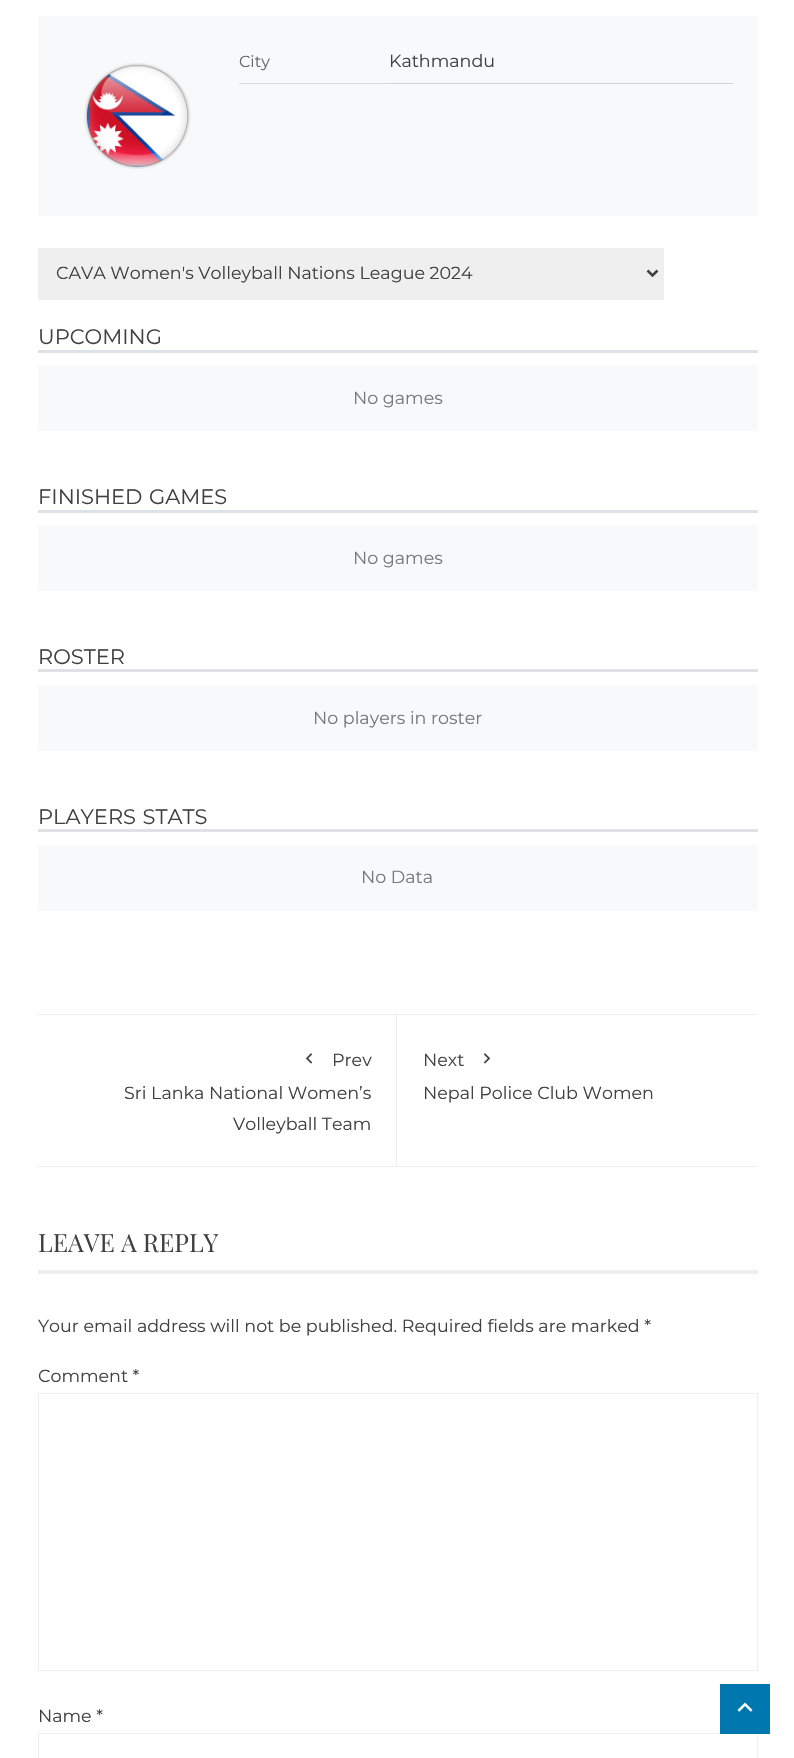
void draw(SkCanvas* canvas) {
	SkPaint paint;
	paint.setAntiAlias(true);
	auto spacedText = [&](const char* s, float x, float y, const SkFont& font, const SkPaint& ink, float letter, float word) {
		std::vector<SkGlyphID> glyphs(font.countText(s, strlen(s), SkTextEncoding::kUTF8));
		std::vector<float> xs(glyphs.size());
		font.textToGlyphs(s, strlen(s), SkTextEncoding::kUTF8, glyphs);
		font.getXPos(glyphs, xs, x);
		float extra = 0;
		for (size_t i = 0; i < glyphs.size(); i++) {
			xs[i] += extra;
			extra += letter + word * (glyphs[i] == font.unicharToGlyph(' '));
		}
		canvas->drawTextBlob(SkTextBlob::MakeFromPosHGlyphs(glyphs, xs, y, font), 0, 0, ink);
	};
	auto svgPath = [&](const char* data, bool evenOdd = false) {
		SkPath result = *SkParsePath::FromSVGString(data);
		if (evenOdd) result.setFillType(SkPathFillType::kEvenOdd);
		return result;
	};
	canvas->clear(0xffffffff);
	paint.setColor(0xfff8f9fa);
	canvas->drawRect(SkRect::MakeXYWH(38, 16, 720, 200), paint);
	canvas->drawImageRect(SkImages::DeferredFromEncodedData(SkData::MakeFromFileName("img1.png")), SkRect::MakeXYWH(84, 63, 107, 106), SkSamplingOptions());
	paint.setColor(0xffd6dbe0);
	canvas->drawRect(SkRect::MakeXYWH(239, 83, 150, 1), paint);
	SkFont f1(fontMgr->matchFamilyStyle("Montserrat", SkFontStyle::Normal()), 16);
	f1.setSubpixel(true);
	paint.setColor(0xff656565);
	canvas->drawString("City", 239, 67, f1, paint);
	paint.setColor(0xffced4da);
	canvas->drawRect(SkRect::MakeXYWH(389, 83, 344, 1), paint);
	SkFont f2(fontMgr->matchFamilyStyle("Montserrat", SkFontStyle::Normal()), 17.5);
	f2.setSubpixel(true);
	paint.setColor(0xff404040);
	canvas->drawString("Kathmandu", 389, 67, f2, paint);
	paint.setColor(0xffefefef);
	canvas->drawRect(SkRect::MakeXYWH(38, 248, 626, 52), paint);
	paint.setStroke(true);
	paint.setStrokeWidth(2.5);
	paint.setColor(0xff404040);
	canvas->drawPath(svgPath("M647.5 270.5L652.5 275.5L657.5 270.5"), paint);
	paint.setStroke(false);
	canvas->drawString("CAVA Women's Volleyball Nations League 2024", 56, 279, f2, paint);
	paint.setColor(0xffdee2e6);
	canvas->drawRect(SkRect::MakeXYWH(38, 350, 720, 3), paint);
	SkFont f3(fontMgr->matchFamilyStyle("Montserrat", SkFontStyle::Normal()), 21);
	f3.setSubpixel(true);
	paint.setColor(0xff404040);
	canvas->drawString("UPCOMING", 38, 344, f3, paint);
	paint.setColor(0xfff8f9fa);
	canvas->drawRect(SkRect::MakeXYWH(38, 365, 720, 66), paint);
	paint.setColor(0xff777878);
	canvas->drawString("No games", 353, 404, f2, paint);
	paint.setColor(0xffdee2e6);
	canvas->drawRect(SkRect::MakeXYWH(38, 510, 720, 3), paint);
	paint.setColor(0xff404040);
	spacedText("FINISHED GAMES", 38, 504, f3, paint, 0, 1);
	paint.setColor(0xfff8f9fa);
	canvas->drawRect(SkRect::MakeXYWH(38, 525, 720, 66), paint);
	paint.setColor(0xff777878);
	canvas->drawString("No games", 353, 564, f2, paint);
	paint.setColor(0xffdee2e6);
	canvas->drawRect(SkRect::MakeXYWH(38, 669, 720, 3), paint);
	paint.setColor(0xff404040);
	canvas->drawString("ROSTER", 38, 664, f3, paint);
	paint.setColor(0xfff8f9fa);
	canvas->drawRect(SkRect::MakeXYWH(38, 685, 720, 66), paint);
	paint.setColor(0xff777878);
	canvas->drawString("No players in roster", 313, 724, f2, paint);
	paint.setColor(0xffdee2e6);
	canvas->drawRect(SkRect::MakeXYWH(38, 829, 720, 3), paint);
	paint.setColor(0xff404040);
	spacedText("PLAYERS STATS", 38, 824, f3, paint, 0, 1);
	paint.setColor(0xfff8f9fa);
	canvas->drawRect(SkRect::MakeXYWH(38, 845, 720, 66), paint);
	paint.setColor(0xff777878);
	canvas->drawString("No Data", 361, 883, f2, paint);
	paint.setColor(0xffeeeeee);
	canvas->drawRect(SkRect::MakeXYWH(38, 1014, 720, 1), paint);
	canvas->drawRect(SkRect::MakeXYWH(38, 1166, 720, 1), paint);
	canvas->drawRect(SkRect::MakeXYWH(396, 1015, 1, 151), paint);
	canvas->drawImageRect(SkImages::DeferredFromEncodedData(SkData::MakeFromFileName("img2.png")), SkRect::MakeXYWH(305, 1053, 8, 11), SkSamplingOptions());
	paint.setColor(0xff404040);
	canvas->drawString("Prev", 332, 1066, f2, paint);
	canvas->drawString("Sri Lanka National Women’s", 124, 1099, f2, paint);
	canvas->drawString("Volleyball Team", 233, 1130, f2, paint);
	canvas->drawString("Next", 423, 1066, f2, paint);
	canvas->drawImageRect(SkImages::DeferredFromEncodedData(SkData::MakeFromFileName("img3.png")), SkRect::MakeXYWH(483, 1053, 8, 11), SkSamplingOptions());
	canvas->drawString("Nepal Police Club Women", 423, 1099, f2, paint);
	paint.setColor(0xffeeeeee);
	canvas->drawRect(SkRect::MakeXYWH(38, 1270, 720, 4), paint);
	SkFont f4(fontMgr->matchFamilyStyle("Playfair Display", SkFontStyle::Normal()), 25);
	f4.setSubpixel(true);
	paint.setColor(0xff404040);
	canvas->drawString("LEAVE A REPLY", 38, 1252, f4, paint);
	canvas->drawString("Your email address will not be published. Required fields are marked *", 38, 1332, f2, paint);
	canvas->drawString("Comment *", 38, 1382, f2, paint);
	paint.setStroke(true);
	paint.setStrokeWidth(1);
	paint.setColor(0xffeeeeee);
	canvas->drawRect(SkRect::MakeXYWH(38.5, 1393.5, 719, 277), paint);
	paint.setStroke(false);
	paint.setColor(0xff404040);
	canvas->drawString("Name *", 38, 1722, f2, paint);
	paint.setStroke(true);
	paint.setColor(0xffeeeeee);
	canvas->drawRect(SkRect::MakeXYWH(38.5, 1733.5, 719, 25), paint);
	paint.setStroke(false);
	paint.setColor(0xff0078af);
	canvas->drawRect(SkRect::MakeXYWH(720, 1684, 50, 50), paint);
	canvas->drawImageRect(SkImages::DeferredFromEncodedData(SkData::MakeFromFileName("img4.png")), SkRect::MakeXYWH(737, 1702, 16, 10), SkSamplingOptions());
}
